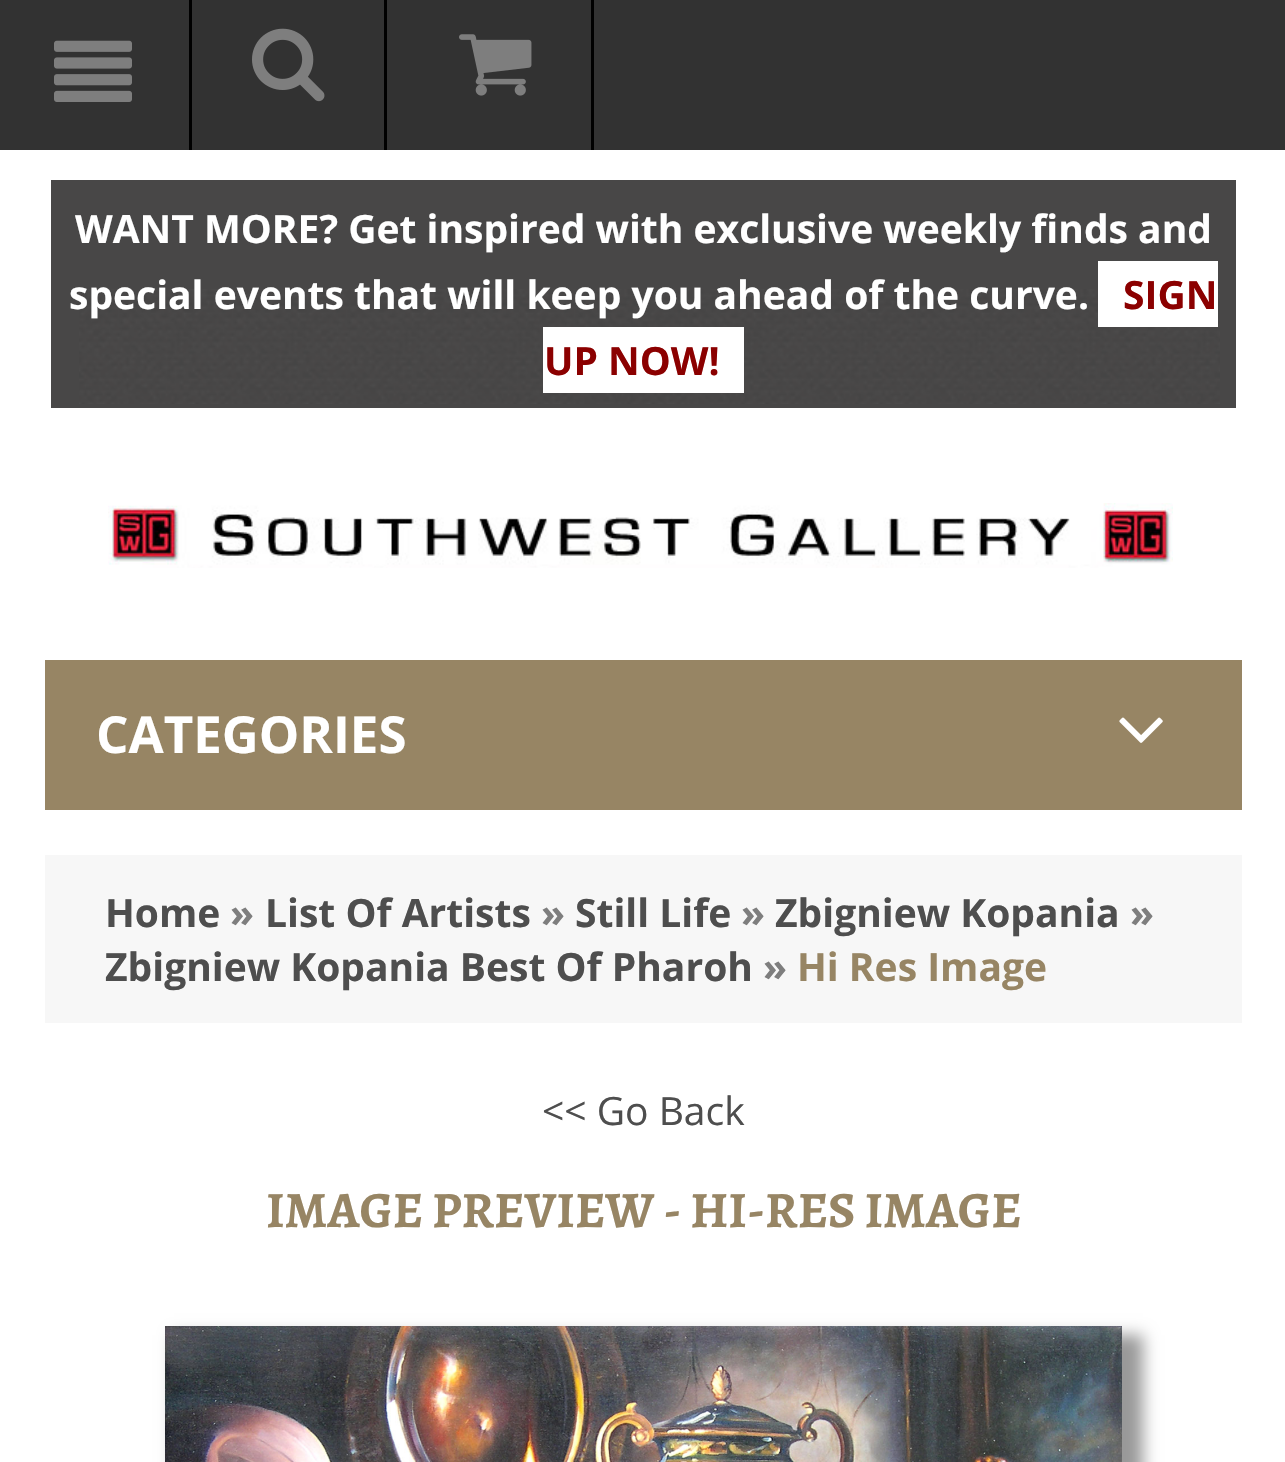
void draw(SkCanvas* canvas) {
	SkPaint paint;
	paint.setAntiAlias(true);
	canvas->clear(0xffffffff);
	paint.setColor(0xff484747);
	canvas->drawRect(SkRect::MakeXYWH(51, 180, 1185, 228), paint);
	canvas->drawImageRect(SkImages::DeferredFromEncodedData(SkData::MakeFromFileName("img1.png")), SkRect::MakeXYWH(79, 289, 1141, 115), SkSamplingOptions());
	SkFont f1(fontMgr->matchFamilyStyle("Open Sans", SkFontStyle::Bold()), 39);
	f1.setSubpixel(true);
	paint.setColor(0xffffffff);
	canvas->drawString("WANT MORE? Get inspired with exclusive weekly finds and", 75, 243, f1, paint);
	canvas->drawString("special events that will keep you ahead of the curve.", 69, 309, f1, paint);
	canvas->drawRect(SkRect::MakeXYWH(1098, 261, 120, 66), paint);
	paint.setColor(0xff8b0000);
	canvas->drawString("SIGN", 1123, 309, f1, paint);
	paint.setColor(0xffffffff);
	canvas->drawRect(SkRect::MakeXYWH(543, 327, 201, 66), paint);
	paint.setColor(0xff8b0000);
	canvas->drawString("UP NOW!", 544, 375, f1, paint);
	canvas->drawImageRect(SkImages::DeferredFromEncodedData(SkData::MakeFromFileName("img2.png")), SkRect::MakeXYWH(108, 503, 1065, 65), SkSamplingOptions());
	paint.setColor(0xff323232);
	canvas->drawRect(SkRect::MakeXYWH(0, 0, 1285, 150), paint);
	paint.setColor(0xff000000);
	canvas->drawRect(SkRect::MakeXYWH(189, 0, 3, 150), paint);
	canvas->drawImageRect(SkImages::DeferredFromEncodedData(SkData::MakeFromFileName("img3.png")), SkRect::MakeXYWH(54, 40, 78, 62), SkSamplingOptions());
	canvas->drawRect(SkRect::MakeXYWH(384, 0, 3, 150), paint);
	canvas->drawImageRect(SkImages::DeferredFromEncodedData(SkData::MakeFromFileName("img4.png")), SkRect::MakeXYWH(252, 28, 73, 74), SkSamplingOptions());
	canvas->drawRect(SkRect::MakeXYWH(591, 0, 3, 150), paint);
	canvas->drawImageRect(SkImages::DeferredFromEncodedData(SkData::MakeFromFileName("img5.png")), SkRect::MakeXYWH(459, 34, 73, 62), SkSamplingOptions());
	paint.setColor(0xff978564);
	canvas->drawRect(SkRect::MakeXYWH(45, 660, 1197, 150), paint);
	SkFont f2(fontMgr->matchFamilyStyle("Open Sans", SkFontStyle::Bold()), 51);
	f2.setSubpixel(true);
	paint.setColor(0xffffffff);
	canvas->drawString("CATEGORIES", 96, 753, f2, paint);
	canvas->drawImageRect(SkImages::DeferredFromEncodedData(SkData::MakeFromFileName("img6.png")), SkRect::MakeXYWH(1119, 717, 44, 26), SkSamplingOptions());
	paint.setColor(0xfff7f7f7);
	canvas->drawRect(SkRect::MakeXYWH(45, 855, 1197, 168), paint);
	paint.setColor(0xff4e4e4e);
	canvas->drawString("Home", 105, 927, f1, paint);
	paint.setColor(0xff7e7e7e);
	canvas->drawString("»", 230, 927, f1, paint);
	paint.setColor(0xff4e4e4e);
	canvas->drawString("List Of Artists", 265, 927, f1, paint);
	paint.setColor(0xff7e7e7e);
	canvas->drawString("»", 541, 927, f1, paint);
	paint.setColor(0xff4e4e4e);
	canvas->drawString("Still Life", 575, 927, f1, paint);
	paint.setColor(0xff7e7e7e);
	canvas->drawString("»", 741, 927, f1, paint);
	paint.setColor(0xff4e4e4e);
	canvas->drawString("Zbigniew Kopania", 775, 927, f1, paint);
	paint.setColor(0xff7e7e7e);
	canvas->drawString("»", 1130, 927, f1, paint);
	paint.setColor(0xff4e4e4e);
	canvas->drawString("Zbigniew Kopania Best Of Pharoh", 105, 981, f1, paint);
	paint.setColor(0xff7e7e7e);
	canvas->drawString("»", 763, 981, f1, paint);
	paint.setColor(0xff978564);
	canvas->drawString("Hi Res Image", 797, 981, f1, paint);
	SkFont f3(fontMgr->matchFamilyStyle("Open Sans", SkFontStyle::Normal()), 39);
	f3.setSubpixel(true);
	paint.setColor(0xff4e4e4e);
	canvas->drawString("<< Go Back", 542, 1125, f3, paint);
	SkFont f4(fontMgr->matchFamilyStyle("Alegreya SC", SkFontStyle::Bold()), 51);
	f4.setSubpixel(true);
	paint.setColor(0xff978564);
	canvas->drawString("IMAGE PREVIEW - HI-RES IMAGE", 266, 1227, f4, paint);
	paint.setColor(0xff999999);
	paint.setMaskFilter(SkMaskFilter::MakeBlur(kNormal_SkBlurStyle, 7.5));
	canvas->drawRect(SkRect::MakeXYWH(174, 1335, 969, 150), paint);
	paint.setMaskFilter(nullptr);
	canvas->drawImageRect(SkImages::DeferredFromEncodedData(SkData::MakeFromFileName("img7.png")), SkRect::MakeXYWH(165, 1326, 957, 136), SkSamplingOptions());
}
